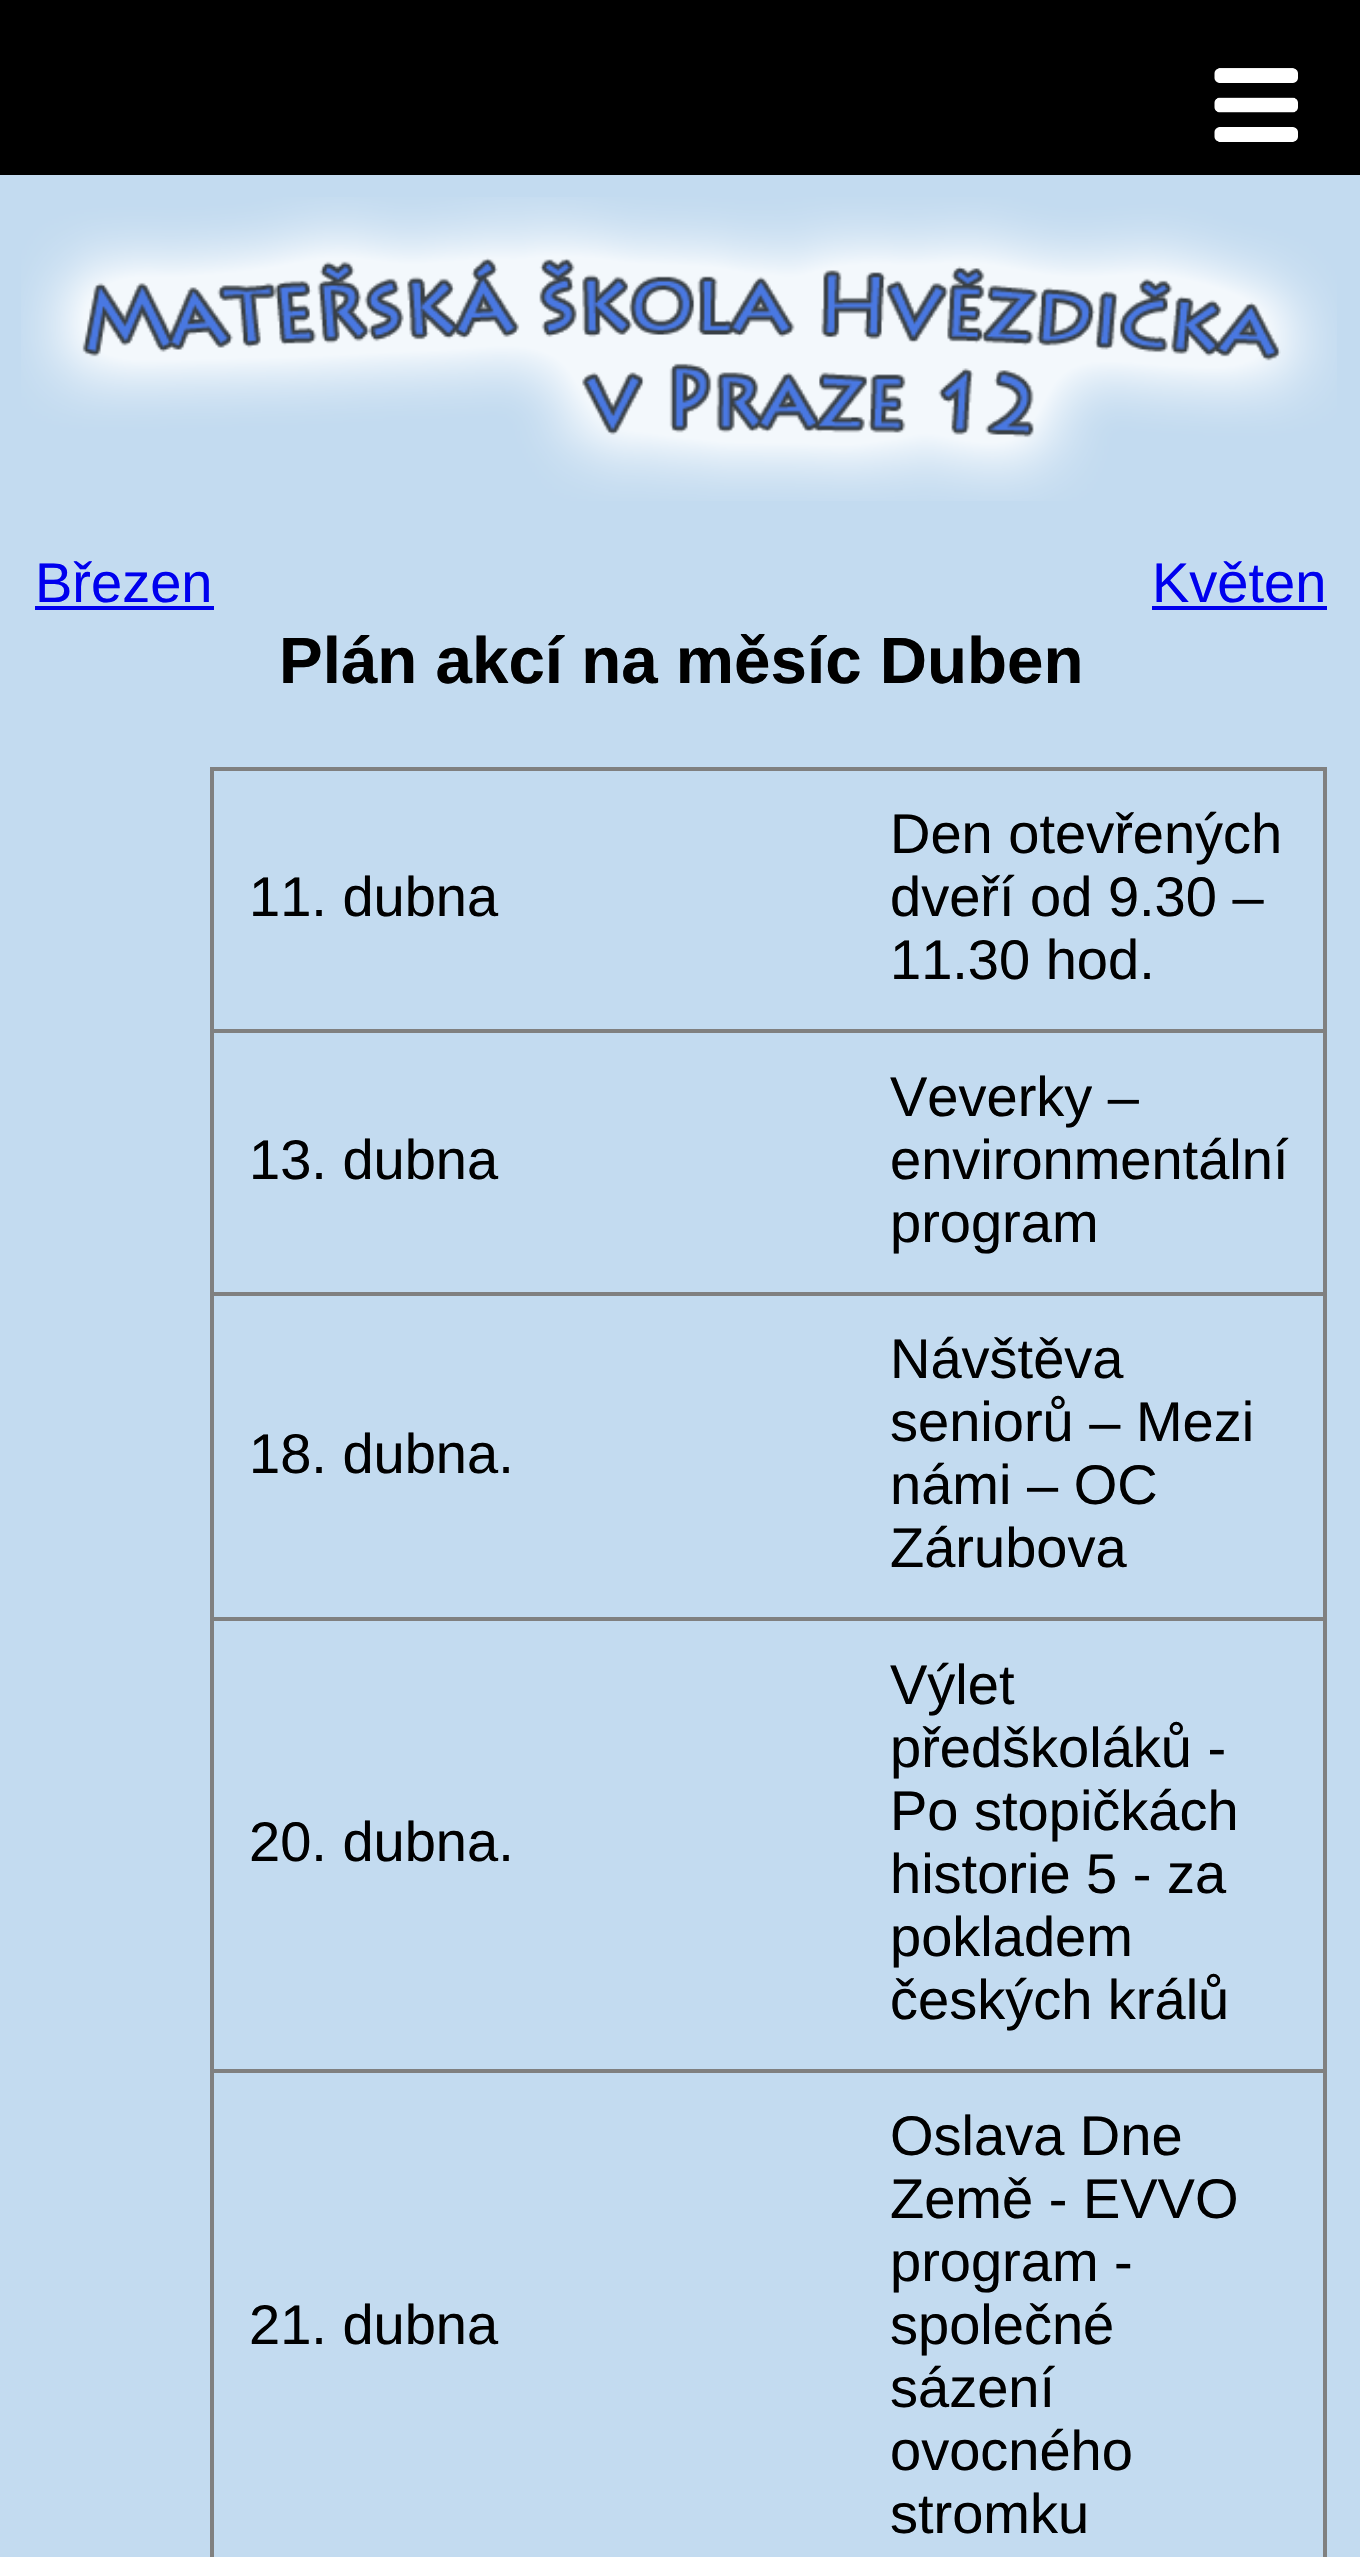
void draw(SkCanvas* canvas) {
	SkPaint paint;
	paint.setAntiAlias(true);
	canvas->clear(0xffc3dbf0);
	paint.setColor(0xff000000);
	canvas->drawRect(SkRect::MakeXYWH(0, 0, 1360, 175), paint);
	canvas->drawImageRect(SkImages::DeferredFromEncodedData(SkData::MakeFromFileName("img1.png")), SkRect::MakeXYWH(1214, 68, 84, 74), SkSamplingOptions());
	canvas->drawImageRect(SkImages::DeferredFromEncodedData(SkData::MakeFromFileName("img2.png")), SkRect::MakeXYWH(21, 197, 1316, 304), SkSamplingOptions());
	SkFont f1(fontMgr->matchFamilyStyle("Liberation Sans", SkFontStyle::Normal()), 56);
	f1.setSubpixel(true);
	paint.setColor(0xff0000ee);
	canvas->drawString("Březen", 35, 602, f1, paint);
	canvas->drawRect(SkRect::MakeXYWH(35, 606, 179, 4), paint);
	canvas->drawString("Květen", 1152, 602, f1, paint);
	canvas->drawRect(SkRect::MakeXYWH(1152, 606, 175, 4), paint);
	SkFont f2(fontMgr->matchFamilyStyle("Liberation Sans", SkFontStyle::Bold()), 65.5);
	f2.setSubpixel(true);
	paint.setColor(0xff000000);
	canvas->drawString("Plán akcí na měsíc Duben", 279, 683, f2, paint);
	paint.setColor(0xff808080);
	canvas->drawRect(SkRect::MakeXYWH(210, 767, 1117, 4), paint);
	canvas->drawRect(SkRect::MakeXYWH(1323, 767, 4, 1790), paint);
	canvas->drawRect(SkRect::MakeXYWH(210, 767, 4, 1790), paint);
	paint.setColor(0xff000000);
	canvas->drawString("11. dubna", 249, 916, f1, paint);
	canvas->drawString("Den otevřených", 890, 853, f1, paint);
	canvas->drawString("dveří od 9.30 –", 890, 916, f1, paint);
	canvas->drawString("11.30 hod.", 890, 979, f1, paint);
	canvas->drawString("13. dubna", 249, 1179, f1, paint);
	paint.setColor(0xff808080);
	canvas->drawRect(SkRect::MakeXYWH(210, 1029, 1117, 4), paint);
	paint.setColor(0xff000000);
	canvas->drawString("Veverky –", 890, 1116, f1, paint);
	canvas->drawString("environmentální", 890, 1179, f1, paint);
	canvas->drawString("program", 890, 1242, f1, paint);
	canvas->drawString("18. dubna.", 249, 1473, f1, paint);
	paint.setColor(0xff808080);
	canvas->drawRect(SkRect::MakeXYWH(210, 1292, 1117, 4), paint);
	paint.setColor(0xff000000);
	canvas->drawString("Návštěva", 890, 1378, f1, paint);
	canvas->drawString("seniorů – Mezi", 890, 1441, f1, paint);
	canvas->drawString("námi – OC", 890, 1504, f1, paint);
	canvas->drawString("Zárubova", 890, 1567, f1, paint);
	canvas->drawString("20. dubna.", 249, 1861, f1, paint);
	paint.setColor(0xff808080);
	canvas->drawRect(SkRect::MakeXYWH(210, 1617, 1117, 4), paint);
	paint.setColor(0xff000000);
	canvas->drawString("Výlet", 890, 1704, f1, paint);
	canvas->drawString("předškoláků -", 890, 1767, f1, paint);
	canvas->drawString("Po stopičkách", 890, 1830, f1, paint);
	canvas->drawString("historie 5 - za", 890, 1893, f1, paint);
	canvas->drawString("pokladem", 890, 1956, f1, paint);
	canvas->drawString("českých králů", 890, 2019, f1, paint);
	canvas->drawString("21. dubna", 249, 2344, f1, paint);
	paint.setColor(0xff808080);
	canvas->drawRect(SkRect::MakeXYWH(210, 2069, 1117, 4), paint);
	paint.setColor(0xff000000);
	canvas->drawString("Oslava Dne", 890, 2155, f1, paint);
	canvas->drawString("Země - EVVO", 890, 2218, f1, paint);
	canvas->drawString("program -", 890, 2281, f1, paint);
	canvas->drawString("společné", 890, 2344, f1, paint);
	canvas->drawString("sázení", 890, 2407, f1, paint);
	canvas->drawString("ovocného", 890, 2470, f1, paint);
	canvas->drawString("stromku", 890, 2533, f1, paint);
}
